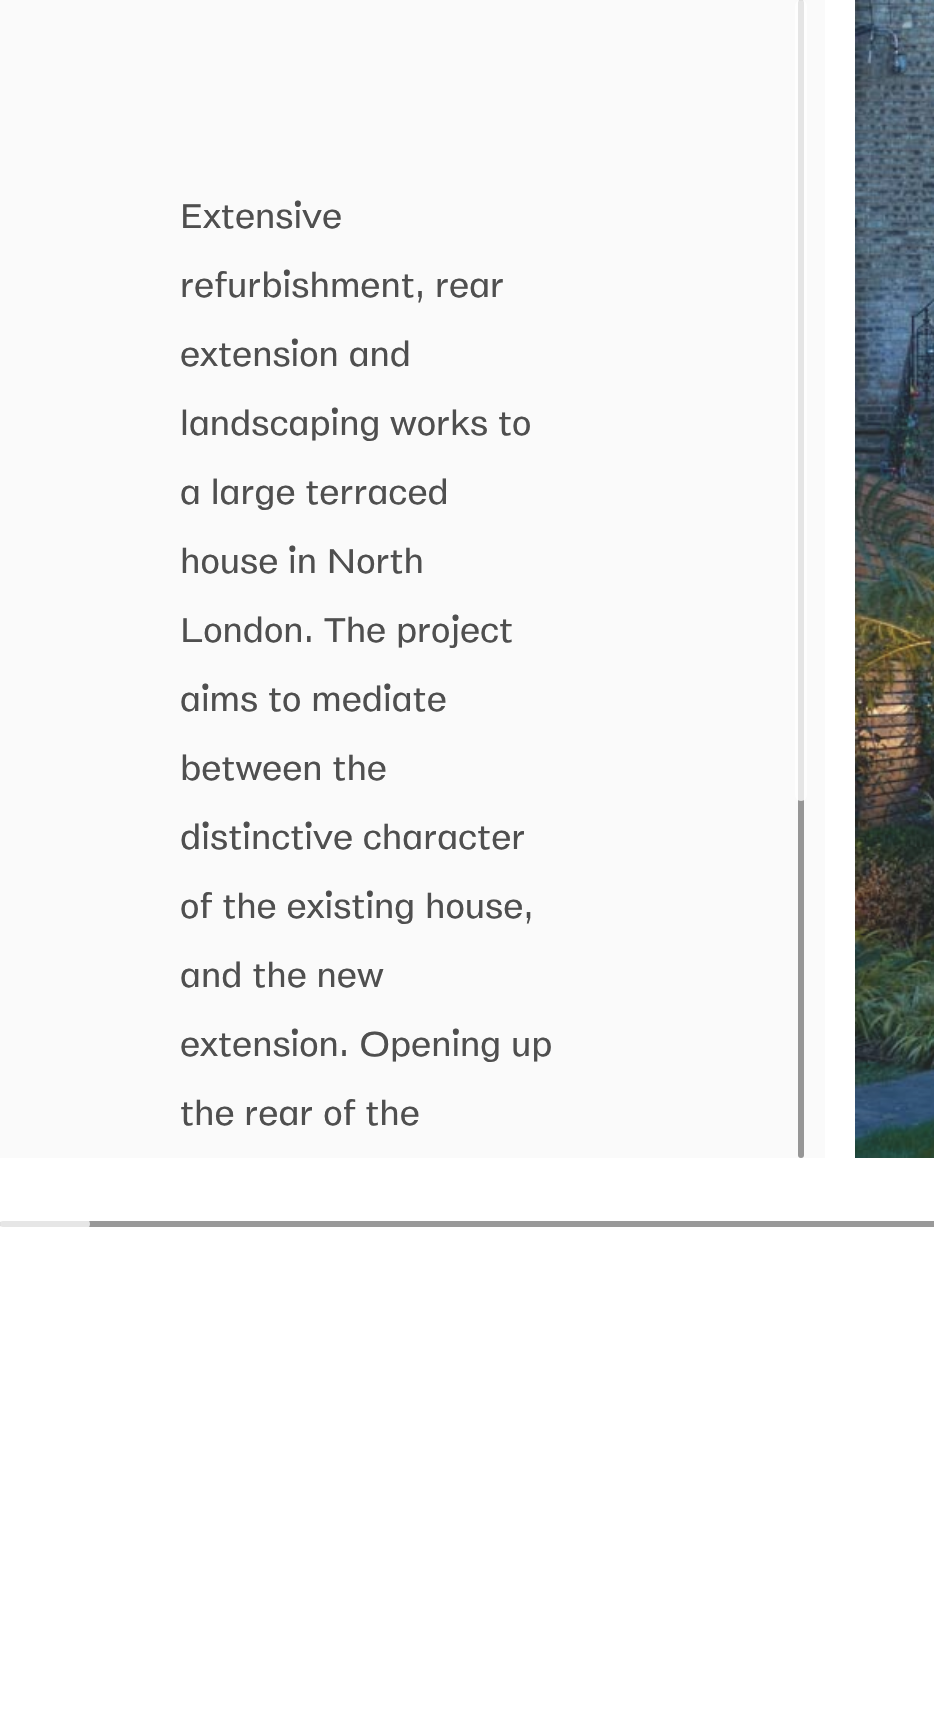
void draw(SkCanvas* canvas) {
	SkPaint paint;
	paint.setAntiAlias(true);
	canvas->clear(0xffffffff);
	paint.setColor(0xfffafafa);
	canvas->drawRect(SkRect::MakeXYWH(0, 0, 825, 1158), paint);
	SkFont f1(fontMgr->matchFamilyStyle("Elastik", SkFontStyle::Normal()), 42);
	f1.setSubpixel(true);
	paint.setColor(0xff4f4f4f);
	canvas->drawString("Extensive", 180, 228, f1, paint);
	canvas->drawString("refurbishment, rear", 180, 297, f1, paint);
	canvas->drawString("extension and", 180, 366, f1, paint);
	canvas->drawString("landscaping works to", 180, 435, f1, paint);
	canvas->drawString("a large terraced", 180, 504, f1, paint);
	canvas->drawString("house in North", 180, 573, f1, paint);
	canvas->drawString("London. The project", 180, 642, f1, paint);
	canvas->drawString("aims to mediate", 180, 711, f1, paint);
	canvas->drawString("between the", 180, 780, f1, paint);
	canvas->drawString("distinctive character", 180, 849, f1, paint);
	canvas->drawString("of the existing house,", 180, 918, f1, paint);
	canvas->drawString("and the new", 180, 987, f1, paint);
	canvas->drawString("extension. Opening up", 180, 1056, f1, paint);
	canvas->drawString("the rear of the", 180, 1125, f1, paint);
	paint.setColor(0xff969696);
	canvas->drawRoundRect(SkRect::MakeXYWH(798, 0, 6, 1158), 3, 3, paint);
	paint.setColor(0xbfffffff);
	canvas->drawRoundRect(SkRect::MakeXYWH(795, 0, 12, 801), 6, 6, paint);
	canvas->drawImageRect(SkImages::DeferredFromEncodedData(SkData::MakeFromFileName("img1.png")), SkRect::MakeXYWH(855, 0, 79, 1158), SkSamplingOptions());
	paint.setColor(0xff999999);
	canvas->drawRoundRect(SkRect::MakeXYWH(0, 1221, 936, 6), 3, 3, paint);
	paint.setColor(0xbfffffff);
	canvas->drawRoundRect(SkRect::MakeXYWH(0, 1218, 90, 12), 6, 6, paint);
}
